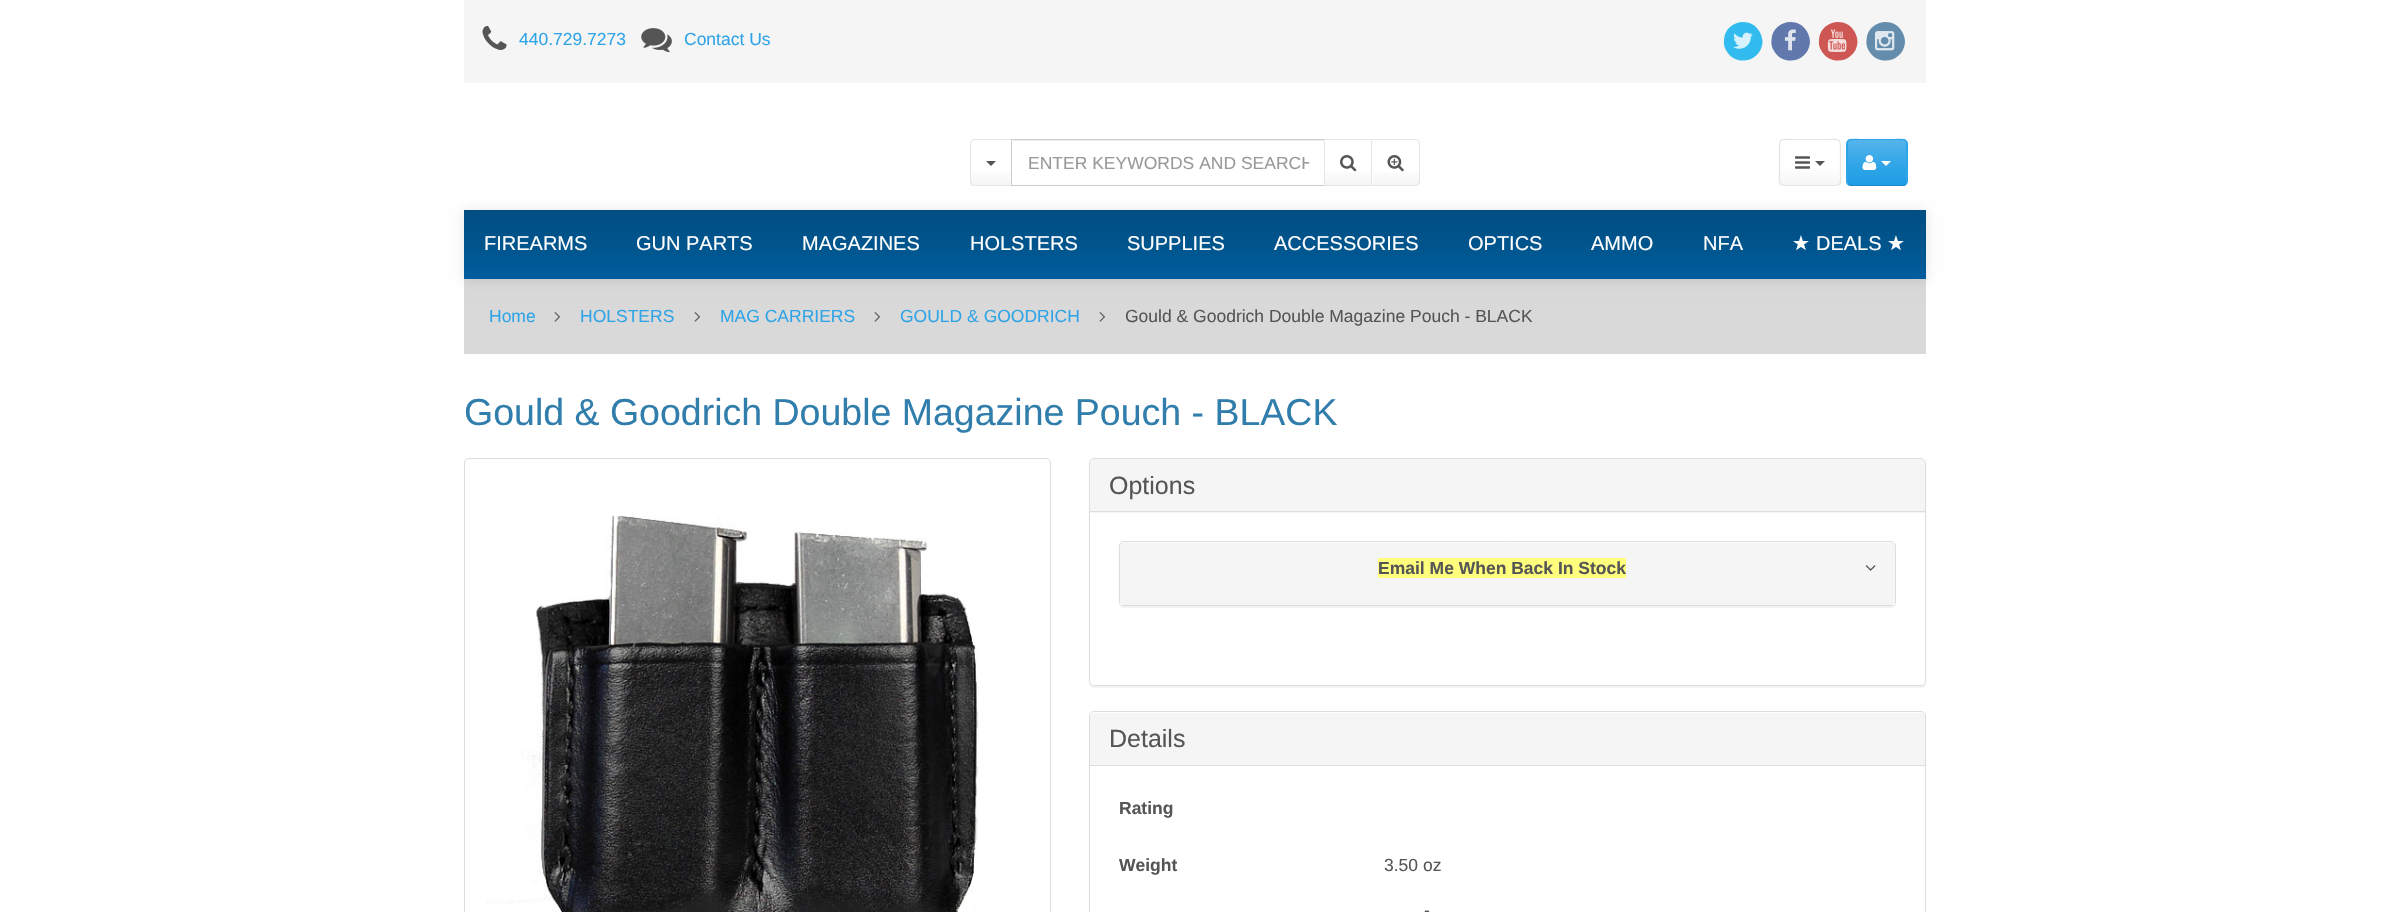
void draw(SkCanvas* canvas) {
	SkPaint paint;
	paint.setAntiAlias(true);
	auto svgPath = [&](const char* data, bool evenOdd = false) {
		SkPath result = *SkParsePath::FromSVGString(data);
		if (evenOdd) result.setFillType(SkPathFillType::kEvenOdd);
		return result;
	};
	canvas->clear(0xffffffff);
	paint.setColor(0xfff5f5f5);
	canvas->drawRect(SkRect::MakeXYWH(464, 0, 1462, 83), paint);
	canvas->drawImageRect(SkImages::DeferredFromEncodedData(SkData::MakeFromFileName("img1.png")), SkRect::MakeXYWH(482, 25, 25, 25), SkSamplingOptions());
	SkFont f1(fontMgr->matchFamilyStyle("Liberation Sans", SkFontStyle::Normal()), 17.5);
	f1.setSubpixel(true);
	paint.setColor(0xff2fa4e7);
	canvas->drawString("440.729.7273", 519, 45, f1, paint);
	canvas->drawImageRect(SkImages::DeferredFromEncodedData(SkData::MakeFromFileName("img2.png")), SkRect::MakeXYWH(641, 28, 31, 25), SkSamplingOptions());
	canvas->drawString("Contact Us", 684, 45, f1, paint);
	paint.setColor(0xff31bbef);
	canvas->drawPath(svgPath("M1759.5 31.5C1761.5 35 1762.5 39 1762.5 42.5C1761 61.5 1736 67.5 1726.5 51C1724.5 48 1723.5 44 1724 40C1725 21 1750 15.5 1759.5 31.5Z"), paint);
	canvas->drawImageRect(SkImages::DeferredFromEncodedData(SkData::MakeFromFileName("img3.png")), SkRect::MakeXYWH(1733, 32, 20, 17), SkSamplingOptions());
	paint.setColor(0xff6078ab);
	canvas->drawPath(svgPath("M1807 31.5C1809 35 1810 39 1810 42.5C1808.5 61.5 1783.5 67.5 1774 51C1772 48 1771 44 1771.5 40C1772.5 21 1797.5 15.5 1807 31.5Z"), paint);
	canvas->drawImageRect(SkImages::DeferredFromEncodedData(SkData::MakeFromFileName("img4.png")), SkRect::MakeXYWH(1784, 29, 12, 22), SkSamplingOptions());
	paint.setColor(0xffce5753);
	canvas->drawPath(svgPath("M1854.5 31.5C1856.5 35 1857.5 39 1857.5 42.5C1856 61.5 1831 67.5 1821.5 51C1819.5 48 1818.5 44 1819 40C1820 21 1845 15.5 1854.5 31.5Z"), paint);
	canvas->drawImageRect(SkImages::DeferredFromEncodedData(SkData::MakeFromFileName("img5.png")), SkRect::MakeXYWH(1827, 29, 20, 23), SkSamplingOptions());
	paint.setColor(0xff638cad);
	canvas->drawPath(svgPath("M1902 31.5C1904 35 1905 39 1905 42.5C1903.5 61.5 1878.5 67.5 1869 51C1867 48 1866 44 1866.5 40C1867.5 21 1892.5 15.5 1902 31.5Z"), paint);
	canvas->drawImageRect(SkImages::DeferredFromEncodedData(SkData::MakeFromFileName("img6.png")), SkRect::MakeXYWH(1875, 31, 20, 20), SkSamplingOptions());
	{
		const SkColor colors[] = {0xffffffff, 0xffffffff, 0xfff5f5f5};
		const float stops[] = {0, 0.6, 1};
		const SkPoint ends[] = {{991, 140}, {991, 185}};
		paint.setShader(SkGradientShader::MakeLinear(ends, colors, stops, 3, SkTileMode::kClamp));
		paint.setAlpha(255);
	}
	canvas->drawRect(SkRect::MakeXYWH(971, 172, 40, 13), paint);
	paint.setShader(nullptr);
	paint.setColor(0xffe6e6e6);
	canvas->drawPath(svgPath("M975 139C974 139 972 139 972 140V141C973 140 974 140 975 140H1011L1012 139ZM1012 186H975C974 186 972 186 972 185V184C973 185 974 185 975 185H1011Z"), paint);
	paint.setColor(0x1a000000);
	canvas->drawPath(svgPath("M970 144V181C970 183 971 184 972 185V184C972 183 971 182 971 181V144C971 143 972 142 972 141V140C971 141 970 142 970 144Z"), paint);
	paint.setColor(0xff555555);
	canvas->drawPath(svgPath("M986 161H996L991 166Z"), paint);
	paint.setColor(0xffececec);
	canvas->drawRect(SkRect::MakeXYWH(1013, 140, 311, 1), paint);
	paint.setStroke(true);
	paint.setStrokeWidth(1);
	paint.setColor(0xffcccccc);
	canvas->drawRect(SkRect::MakeXYWH(1011.5, 139.5, 313, 46), paint);
	canvas->save();
	canvas->clipRect(SkRect::MakeXYWH(1028, 153, 281, 20));
	paint.setStroke(false);
	paint.setColor(0xff999999);
	canvas->drawString("ENTER KEYWORDS AND SEARCH", 1028, 169, f1, paint);
	canvas->restore();
	paint.setColor(0xffffffff);
	canvas->drawRect(SkRect::MakeXYWH(1324, 139, 1, 47), paint);
	{
		const SkColor colors[] = {0xffffffff, 0xffffffff, 0xfff5f5f5};
		const float stops[] = {0, 0.6, 1};
		const SkPoint ends[] = {{1348, 140}, {1348, 185}};
		paint.setShader(SkGradientShader::MakeLinear(ends, colors, stops, 3, SkTileMode::kClamp));
		paint.setAlpha(255);
	}
	canvas->drawRect(SkRect::MakeXYWH(1325, 172, 46, 13), paint);
	paint.setShader(nullptr);
	paint.setColor(0xffe6e6e6);
	canvas->drawPath(svgPath("M1324 139H1372L1371 140H1325ZM1372 186H1324L1325 185H1371Z"), paint);
	paint.setColor(0x1a000000);
	canvas->drawPath(svgPath("M1324 186V139L1325 140V185Z"), paint);
	canvas->drawImageRect(SkImages::DeferredFromEncodedData(SkData::MakeFromFileName("img7.png")), SkRect::MakeXYWH(1340, 155, 17, 17), SkSamplingOptions());
	paint.setColor(0xffffffff);
	canvas->drawPath(svgPath("M1371 139H1415C1418 139 1420 141 1420 144V181C1420 184 1418 186 1415 186H1371Z"), paint);
	{
		const SkColor colors[] = {0xffffffff, 0xffffffff, 0xfff5f5f5};
		const float stops[] = {0, 0.6, 1};
		const SkPoint ends[] = {{1396, 140}, {1396, 185}};
		paint.setShader(SkGradientShader::MakeLinear(ends, colors, stops, 3, SkTileMode::kClamp));
		paint.setAlpha(255);
	}
	canvas->drawRect(SkRect::MakeXYWH(1373, 172, 46, 13), paint);
	paint.setShader(nullptr);
	paint.setColor(0xffe6e6e6);
	canvas->drawPath(svgPath("M1418 140C1418 139 1416 139 1415 139H1372V140H1415C1416 140 1417 140 1418 141Z"), paint);
	paint.setColor(0x1a000000);
	canvas->drawPath(svgPath("M1418 140C1419 141 1420 142 1420 144V181C1420 183 1419 184 1418 185V184C1418 183 1419 182 1419 181V144C1419 143 1418 142 1418 141Z"), paint);
	paint.setColor(0xffe6e6e6);
	canvas->drawPath(svgPath("M1418 185C1418 186 1416 186 1415 186H1372V185H1415C1416 185 1417 185 1418 184ZM1372 140V185L1371 186V139Z"), paint);
	canvas->drawImageRect(SkImages::DeferredFromEncodedData(SkData::MakeFromFileName("img8.png")), SkRect::MakeXYWH(1387, 155, 17, 17), SkSamplingOptions());
	canvas->save();
	canvas->clipPath(svgPath("M1784 139H1836C1839 139 1841 141 1841 144V181C1841 184 1839 186 1836 186H1784C1781 186 1779 184 1779 181V144C1779 141 1781 139 1784 139Z"), true);
	{
		const SkColor colors[] = {0xffffffff, 0xffffffff, 0xfff5f5f5};
		const float stops[] = {0, 0.6, 1};
		const SkPoint ends[] = {{1810, 140}, {1810, 185}};
		paint.setShader(SkGradientShader::MakeLinear(ends, colors, stops, 3, SkTileMode::kClamp));
		paint.setAlpha(255);
	}
	canvas->drawRect(SkRect::MakeXYWH(1780, 140, 60, 45), paint);
	canvas->restore();
	paint.setStroke(true);
	paint.setStrokeWidth(1.2);
	paint.setShader(nullptr);
	paint.setColor(0xffe6e6e6);
	canvas->drawPath(svgPath("M1839.5 184.5C1838.5 185 1837.5 185.5 1836 185.5H1784C1782.5 185.5 1781.5 185 1780.5 184.5"), paint);
	paint.setColor(0x1a000000);
	canvas->drawPath(svgPath("M1780.5 184.5C1778.5 182 1779.5 177.5 1779.5 175V150C1779.5 138 1780 139.5 1792.5 139.5H1827.5C1840 139.5 1840.5 138 1840.5 150V175C1840.5 177.5 1841.5 182 1839.5 184.5"), paint);
	canvas->drawImageRect(SkImages::DeferredFromEncodedData(SkData::MakeFromFileName("img9.png")), SkRect::MakeXYWH(1795, 156, 15, 13), SkSamplingOptions());
	paint.setStroke(false);
	paint.setColor(0xff555555);
	canvas->drawPath(svgPath("M1815 161H1825L1820 166Z"), paint);
	paint.setColor(0xff2fa4e7);
	canvas->drawRoundRect(SkRect::MakeXYWH(1846, 139, 62, 47), 5, 5, paint);
	{
		const SkColor colors[] = {0xff54b4eb, 0xff2fa4e7, 0xff1d9ce5};
		const float stops[] = {0, 0.6, 1};
		const SkPoint ends[] = {{1877, 140}, {1877, 185}};
		paint.setShader(SkGradientShader::MakeLinear(ends, colors, stops, 3, SkTileMode::kClamp));
		paint.setAlpha(255);
	}
	canvas->drawRect(SkRect::MakeXYWH(1848, 140, 58, 45), paint);
	paint.setStroke(true);
	paint.setShader(nullptr);
	paint.setColor(0xff178acc);
	canvas->drawPath(svgPath("M1905.5 184.5C1905 185 1903.5 185.5 1902.5 185.5H1851C1850 185.5 1849 185 1848 184.5"), paint);
	paint.setColor(0xff2fa4e7);
	canvas->drawPath(svgPath("M1848 184.5C1846 182 1847 177.5 1847 175V150C1847 138 1847.5 139.5 1860 139.5H1894C1906.5 139.5 1907 138 1907 150V175C1907 177.5 1908 182 1905.5 184.5"), paint);
	canvas->drawImageRect(SkImages::DeferredFromEncodedData(SkData::MakeFromFileName("img10.png")), SkRect::MakeXYWH(1862, 155, 15, 15), SkSamplingOptions());
	paint.setStroke(false);
	paint.setColor(0xffffffff);
	canvas->drawPath(svgPath("M1881 161H1891L1886 166Z"), paint);
	paint.setColor(0xffd9d9d9);
	canvas->drawRect(SkRect::MakeXYWH(464, 279, 1462, 75), paint);
	paint.setColor(0x1a000000);
	paint.setMaskFilter(SkMaskFilter::MakeBlur(kNormal_SkBlurStyle, 6));
	canvas->drawRect(SkRect::MakeXYWH(464, 211, 1462, 69), paint);
	paint.setMaskFilter(nullptr);
	{
		const SkColor colors[] = {0xff014e82, 0xff00568f, 0xff015d9e};
		const float stops[] = {0, 0.6, 1};
		const SkPoint ends[] = {{1195, 210}, {1195, 279}};
		paint.setShader(SkGradientShader::MakeLinear(ends, colors, stops, 3, SkTileMode::kClamp));
		paint.setAlpha(255);
	}
	canvas->drawRect(SkRect::MakeXYWH(464, 210, 1462, 69), paint);
	SkFont f2(fontMgr->matchFamilyStyle("Liberation Sans", SkFontStyle::Normal()), 20);
	f2.setSubpixel(true);
	paint.setShader(nullptr);
	paint.setColor(0xffffffff);
	canvas->drawString("FIREARMS", 484, 250, f2, paint);
	canvas->drawString("GUN PARTS", 636, 250, f2, paint);
	canvas->drawString("MAGAZINES", 802, 250, f2, paint);
	canvas->drawString("HOLSTERS", 970, 250, f2, paint);
	canvas->drawString("SUPPLIES", 1127, 250, f2, paint);
	canvas->drawString("ACCESSORIES", 1274, 250, f2, paint);
	canvas->drawString("OPTICS", 1468, 250, f2, paint);
	canvas->drawString("AMMO", 1591, 250, f2, paint);
	canvas->drawString("NFA", 1703, 250, f2, paint);
	SkFont f3(fontMgr->matchFamilyStyle("DejaVu Sans", SkFontStyle::Normal()), 20);
	f3.setSubpixel(true);
	canvas->drawString("★", 1792, 250, f3, paint);
	canvas->drawString("DEALS", 1816, 250, f2, paint);
	canvas->drawString("★", 1887, 250, f3, paint);
	paint.setColor(0xff2fa4e7);
	canvas->drawString("Home", 489, 322, f1, paint);
	canvas->drawImageRect(SkImages::DeferredFromEncodedData(SkData::MakeFromFileName("img11.png")), SkRect::MakeXYWH(554, 312, 7, 10), SkSamplingOptions());
	canvas->drawString("HOLSTERS", 580, 322, f1, paint);
	canvas->drawImageRect(SkImages::DeferredFromEncodedData(SkData::MakeFromFileName("img11.png")), SkRect::MakeXYWH(694, 312, 7, 10), SkSamplingOptions());
	canvas->drawString("MAG CARRIERS", 720, 322, f1, paint);
	canvas->drawImageRect(SkImages::DeferredFromEncodedData(SkData::MakeFromFileName("img11.png")), SkRect::MakeXYWH(874, 312, 7, 10), SkSamplingOptions());
	canvas->drawString("GOULD & GOODRICH", 900, 322, f1, paint);
	canvas->drawImageRect(SkImages::DeferredFromEncodedData(SkData::MakeFromFileName("img11.png")), SkRect::MakeXYWH(1099, 312, 7, 10), SkSamplingOptions());
	paint.setColor(0xff555555);
	canvas->drawString("Gould & Goodrich Double Magazine Pouch - BLACK", 1125, 322, f1, paint);
	SkFont f4(fontMgr->matchFamilyStyle("Liberation Sans", SkFontStyle::Normal()), 37.5);
	f4.setSubpixel(true);
	paint.setColor(0xff317eac);
	canvas->drawString("Gould & Goodrich Double Magazine Pouch - BLACK", 464, 425, f4, paint);
	paint.setStroke(true);
	paint.setStrokeWidth(1);
	paint.setColor(0xffdddddd);
	canvas->drawRoundRect(SkRect::MakeXYWH(464.5, 458.5, 586, 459), 4.5, 4.5, paint);
	canvas->drawImageRect(SkImages::DeferredFromEncodedData(SkData::MakeFromFileName("img12.png")), SkRect::MakeXYWH(486, 515, 493, 397), SkSamplingOptions());
	canvas->save();
	canvas->clipPath(svgPath("M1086 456H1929V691H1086ZM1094 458H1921C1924 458 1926 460 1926 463V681C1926 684 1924 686 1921 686H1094C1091 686 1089 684 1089 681V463C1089 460 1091 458 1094 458Z", true), true);
	paint.setStroke(false);
	paint.setColor(0x0d000000);
	paint.setMaskFilter(SkMaskFilter::MakeBlur(kNormal_SkBlurStyle, 0.5));
	canvas->drawRoundRect(SkRect::MakeXYWH(1089, 459, 837, 229), 5, 5, paint);
	paint.setMaskFilter(nullptr);
	canvas->restore();
	paint.setStroke(true);
	paint.setColor(0xffdddddd);
	canvas->drawRoundRect(SkRect::MakeXYWH(1089.5, 458.5, 836, 227), 4.5, 4.5, paint);
	paint.setStroke(false);
	paint.setColor(0xfff5f5f5);
	canvas->drawPath(svgPath("M1094 459H1921C1923 459 1925 461 1925 463V513H1090V463C1090 461 1092 459 1094 459Z"), paint);
	paint.setColor(0xffdddddd);
	canvas->drawRect(SkRect::MakeXYWH(1090, 511, 835, 1), paint);
	SkFont f5(fontMgr->matchFamilyStyle("Liberation Sans", SkFontStyle::Normal()), 25);
	f5.setSubpixel(true);
	paint.setColor(0xff555555);
	canvas->drawString("Options", 1109, 494, f5, paint);
	paint.setColor(0x0d000000);
	paint.setMaskFilter(SkMaskFilter::MakeBlur(kNormal_SkBlurStyle, 0.5));
	canvas->drawRoundRect(SkRect::MakeXYWH(1119, 543, 777, 65), 5, 5, paint);
	paint.setMaskFilter(nullptr);
	paint.setStroke(true);
	paint.setColor(0xffdddddd);
	canvas->drawRoundRect(SkRect::MakeXYWH(1119.5, 541.5, 776, 64), 4.5, 4.5, paint);
	paint.setStroke(false);
	paint.setColor(0xfff5f5f5);
	canvas->drawPath(svgPath("M1124 543H1891C1893 543 1895 545 1895 547V605H1120V547C1120 545 1122 543 1124 543Z"), paint);
	paint.setColor(0xffffff7d);
	canvas->drawRect(SkRect::MakeXYWH(1378, 558, 248, 20), paint);
	SkFont f6(fontMgr->matchFamilyStyle("Liberation Sans", SkFontStyle::Bold()), 17.5);
	f6.setSubpixel(true);
	paint.setColor(0xff555555);
	canvas->drawString("Email Me When Back In Stock", 1378, 574, f6, paint);
	canvas->drawImageRect(SkImages::DeferredFromEncodedData(SkData::MakeFromFileName("img13.png")), SkRect::MakeXYWH(1865, 565, 11, 6), SkSamplingOptions());
	paint.setStroke(true);
	paint.setColor(0xffdddddd);
	canvas->drawRoundRect(SkRect::MakeXYWH(1089.5, 711.5, 836, 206), 4.5, 4.5, paint);
	paint.setStroke(false);
	paint.setColor(0xfff5f5f5);
	canvas->drawPath(svgPath("M1094 713H1921C1923 713 1925 715 1925 717V766H1090V717C1090 715 1092 713 1094 713Z"), paint);
	paint.setColor(0xffdddddd);
	canvas->drawRect(SkRect::MakeXYWH(1090, 765, 835, 1), paint);
	paint.setColor(0xff555555);
	canvas->drawString("Details", 1109, 747, f5, paint);
	canvas->drawString("Rating", 1119, 814, f6, paint);
	canvas->drawString("Weight", 1119, 871, f6, paint);
	canvas->drawString("3.50 oz", 1384, 871, f1, paint);
	canvas->drawString("-", 1424, 916, f1, paint);
}
